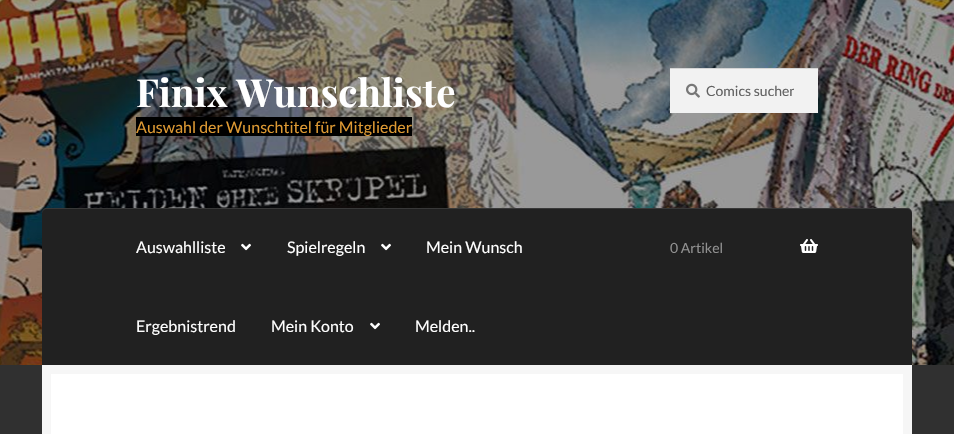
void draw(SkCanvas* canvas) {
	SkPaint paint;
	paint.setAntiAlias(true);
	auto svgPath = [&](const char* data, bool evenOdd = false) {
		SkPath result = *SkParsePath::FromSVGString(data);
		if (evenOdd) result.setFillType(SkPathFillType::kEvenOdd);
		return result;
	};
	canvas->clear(0xff303030);
	canvas->drawImageRect(SkImages::DeferredFromEncodedData(SkData::MakeFromFileName("img1.png")), SkRect::MakeXYWH(0, 0, 954, 365), SkSamplingOptions());
	SkFont f1(fontMgr->matchFamilyStyle("Playfair Display", SkFontStyle::Bold()), 38.5);
	f1.setSubpixel(true);
	paint.setColor(0xffffffff);
	canvas->drawString("Finix Wunschliste", 136, 107, f1, paint);
	paint.setColor(0xff000000);
	canvas->drawRect(SkRect::MakeXYWH(136, 117, 276, 19), paint);
	SkFont f2(fontMgr->matchFamilyStyle("Lato", SkFontStyle::Normal()), 16);
	f2.setSubpixel(true);
	paint.setColor(0xffdd9933);
	canvas->drawString("Auswahl der Wunschtitel für Mitglieder", 136, 133, f2, paint);
	paint.setColor(0xfff2f2f2);
	canvas->drawRect(SkRect::MakeXYWH(670, 69, 148, 44), paint);
	canvas->drawImageRect(SkImages::DeferredFromEncodedData(SkData::MakeFromFileName("img2.png")), SkRect::MakeXYWH(686, 83, 14, 15), SkSamplingOptions());
	paint.setColor(0xffd4d4d4);
	canvas->drawRect(SkRect::MakeXYWH(670, 68, 148, 1), paint);
	canvas->save();
	canvas->clipRect(SkRect::MakeXYWH(706, 82, 88, 17));
	SkFont f3(fontMgr->matchFamilyStyle("Lato", SkFontStyle::Normal()), 14);
	f3.setSubpixel(true);
	paint.setColor(0xff616161);
	canvas->drawString("Comics suchen", 706, 96, f3, paint);
	canvas->restore();
	paint.setColor(0xff212121);
	canvas->drawPath(svgPath("M47 208H907C910 208 912 210 912 213V365H42V213C42 210 44 208 47 208Z"), paint);
	paint.setColor(0x1affffff);
	canvas->drawPath(svgPath("M47 209H907C910 209 912 211 912 214V213C912 210 910 208 907 208H47C44 208 42 210 42 213V214C42 211 44 209 47 209Z"), paint);
	paint.setColor(0xffffffff);
	canvas->drawString("Auswahlliste", 136, 253, f2, paint);
	canvas->drawImageRect(SkImages::DeferredFromEncodedData(SkData::MakeFromFileName("img3.png")), SkRect::MakeXYWH(241, 243, 10, 8), SkSamplingOptions());
	canvas->drawString("Spielregeln", 287, 253, f2, paint);
	canvas->drawImageRect(SkImages::DeferredFromEncodedData(SkData::MakeFromFileName("img3.png")), SkRect::MakeXYWH(381, 243, 10, 8), SkSamplingOptions());
	canvas->drawString("Mein Wunsch", 426, 253, f2, paint);
	canvas->drawString("Ergebnistrend", 136, 332, f2, paint);
	canvas->drawString("Mein Konto", 271, 332, f2, paint);
	canvas->drawImageRect(SkImages::DeferredFromEncodedData(SkData::MakeFromFileName("img3.png")), SkRect::MakeXYWH(370, 322, 10, 8), SkSamplingOptions());
	canvas->drawString("Melden..", 415, 332, f2, paint);
	paint.setColor(0xff909090);
	canvas->drawString("0 Artikel", 670, 253, f3, paint);
	canvas->drawImageRect(SkImages::DeferredFromEncodedData(SkData::MakeFromFileName("img4.png")), SkRect::MakeXYWH(800, 239, 18, 14), SkSamplingOptions());
	paint.setColor(0xffffffff);
	canvas->drawRect(SkRect::MakeXYWH(46.5, 369.5, 861, 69), paint);
	paint.setStroke(true);
	paint.setStrokeWidth(9);
	paint.setColor(0xfff6f6f6);
	canvas->drawRect(SkRect::MakeXYWH(46.5, 369.5, 861, 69), paint);
}
